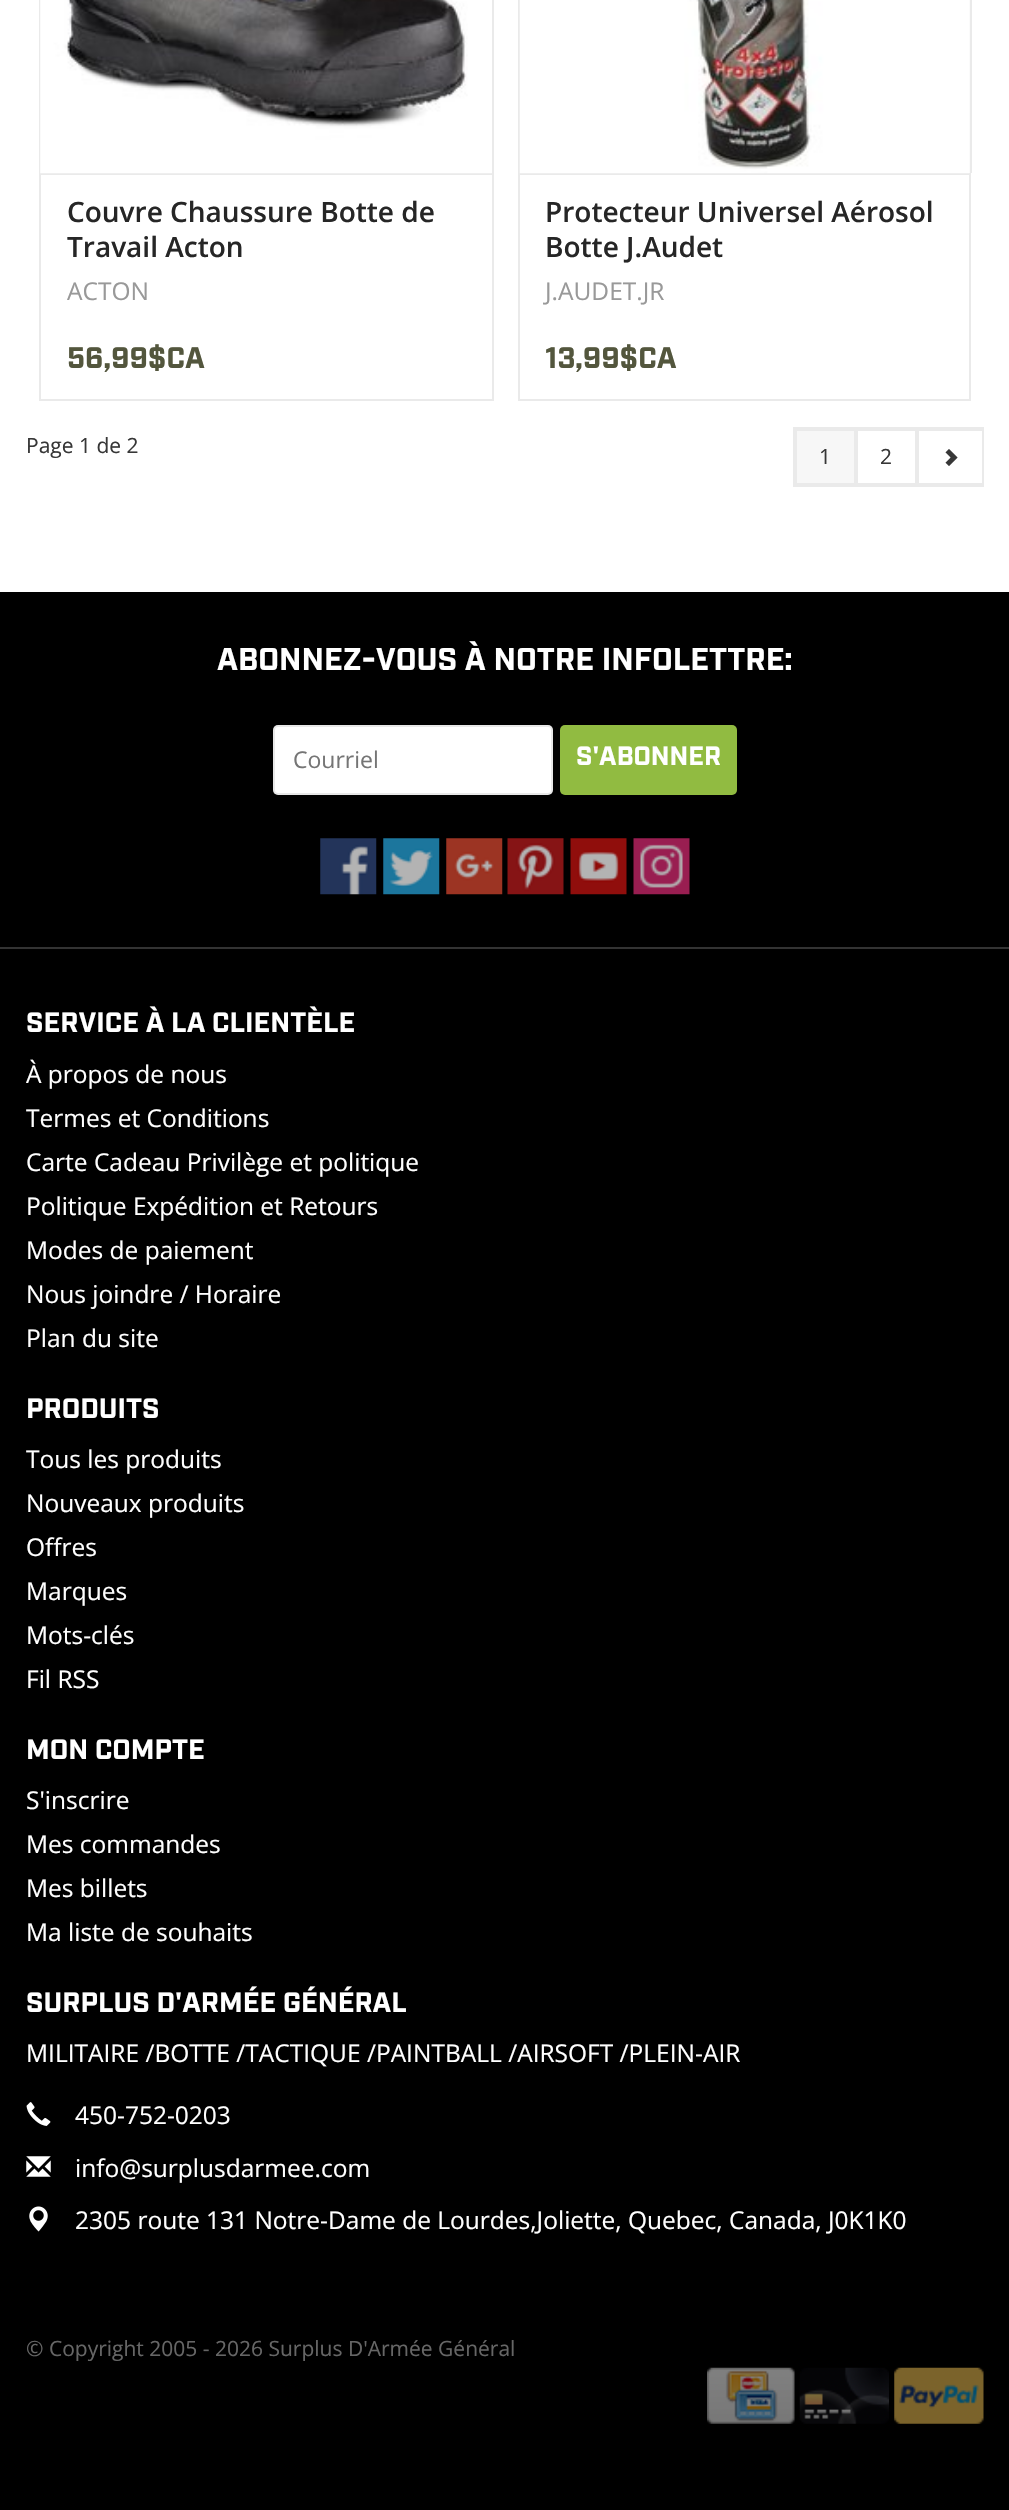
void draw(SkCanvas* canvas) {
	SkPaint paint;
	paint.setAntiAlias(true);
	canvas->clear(0xffffffff);
	paint.setColor(0xffeaeaea);
	canvas->drawRect(SkRect::MakeXYWH(492, 0, 2, 173), paint);
	canvas->drawRect(SkRect::MakeXYWH(39, 0, 2, 173), paint);
	paint.setStroke(true);
	paint.setStrokeWidth(2);
	canvas->drawRect(SkRect::MakeXYWH(40, 174, 453, 226), paint);
	canvas->drawImageRect(SkImages::DeferredFromEncodedData(SkData::MakeFromFileName("img1.png")), SkRect::MakeXYWH(40, 0, 452, 174), SkSamplingOptions());
	SkFont f1(fontMgr->matchFamilyStyle("Open Sans", SkFontStyle(600, SkFontStyle::kNormal_Width, SkFontStyle::kUpright_Slant)), 28);
	f1.setSubpixel(true);
	paint.setStroke(false);
	paint.setColor(0xff262626);
	canvas->drawString("Couvre Chaussure Botte de", 67, 222, f1, paint);
	canvas->save();
	canvas->clipRect(SkRect::MakeXYWH(67, 194, 399, 70));
	canvas->drawString("Travail Acton", 67, 257, f1, paint);
	canvas->restore();
	SkFont f2(fontMgr->matchFamilyStyle("Open Sans", SkFontStyle::Normal()), 24.5);
	f2.setSubpixel(true);
	paint.setColor(0xff999999);
	canvas->drawString("ACTON", 67, 300, f2, paint);
	SkFont f3(fontMgr->matchFamilyStyle("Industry", SkFontStyle::Bold()), 29.75);
	f3.setSubpixel(true);
	paint.setColor(0xff53563d);
	canvas->drawString("56,99$CA", 67, 368, f3, paint);
	paint.setColor(0xfff7f7f7);
	canvas->drawRect(SkRect::MakeXYWH(969, 0, 1, 173), paint);
	paint.setColor(0xffeaeaea);
	canvas->drawRect(SkRect::MakeXYWH(970, 0, 2, 173), paint);
	canvas->drawRect(SkRect::MakeXYWH(518, 0, 2, 173), paint);
	paint.setStroke(true);
	canvas->drawRect(SkRect::MakeXYWH(519, 174, 451, 226), paint);
	canvas->drawImageRect(SkImages::DeferredFromEncodedData(SkData::MakeFromFileName("img2.png")), SkRect::MakeXYWH(519, 0, 451, 174), SkSamplingOptions());
	paint.setStroke(false);
	paint.setColor(0xff262626);
	canvas->drawString("Protecteur Universel Aérosol", 545, 222, f1, paint);
	canvas->drawString("Botte J.Audet", 545, 257, f1, paint);
	paint.setColor(0xff999999);
	canvas->drawString("J.AUDET.JR", 545, 300, f2, paint);
	paint.setColor(0xff53563d);
	canvas->drawString("13,99$CA", 545, 368, f3, paint);
	SkFont f4(fontMgr->matchFamilyStyle("Open Sans", SkFontStyle::Normal()), 21);
	f4.setSubpixel(true);
	paint.setColor(0xff373737);
	canvas->drawString("Page 1 de 2", 26, 453, f4, paint);
	paint.setStroke(true);
	paint.setColor(0xffeaeaea);
	canvas->drawRect(SkRect::MakeXYWH(794, 428, 189, 58), paint);
	paint.setStroke(false);
	paint.setColor(0xfff7f7f7);
	canvas->drawRect(SkRect::MakeXYWH(796, 430, 59, 54), paint);
	paint.setStroke(true);
	paint.setColor(0xffeaeaea);
	canvas->drawRect(SkRect::MakeXYWH(796, 430, 59, 54), paint);
	paint.setStroke(false);
	paint.setColor(0xff373737);
	canvas->drawString("1", 819, 464, f4, paint);
	paint.setStroke(true);
	paint.setColor(0xffeaeaea);
	canvas->drawRect(SkRect::MakeXYWH(857, 430, 59, 54), paint);
	paint.setStroke(false);
	paint.setColor(0xff373737);
	canvas->drawString("2", 880, 464, f4, paint);
	paint.setColor(0xffeaeaea);
	canvas->drawRect(SkRect::MakeXYWH(917, 429, 65, 2), paint);
	canvas->drawRect(SkRect::MakeXYWH(917, 483, 65, 2), paint);
	canvas->drawRect(SkRect::MakeXYWH(917, 429, 2, 56), paint);
	canvas->drawImageRect(SkImages::DeferredFromEncodedData(SkData::MakeFromFileName("img3.png")), SkRect::MakeXYWH(945, 449, 13, 17), SkSamplingOptions());
	paint.setColor(0xff000000);
	canvas->drawRect(SkRect::MakeXYWH(0, 592, 1009, 1918), paint);
	paint.setColor(0xff333333);
	canvas->drawRect(SkRect::MakeXYWH(0, 947, 1009, 2), paint);
	SkFont f5(fontMgr->matchFamilyStyle("Industry", SkFontStyle::Bold()), 31.5);
	f5.setSubpixel(true);
	paint.setColor(0xffffffff);
	canvas->drawString("ABONNEZ-VOUS À NOTRE INFOLETTRE:", 217, 670, f5, paint);
	canvas->drawRoundRect(SkRect::MakeXYWH(273, 725, 280, 70), 5, 5, paint);
	paint.setStroke(true);
	paint.setColor(0x17000000);
	canvas->drawRoundRect(SkRect::MakeXYWH(274, 726, 278, 68), 4, 4, paint);
	SkFont f6(fontMgr->matchFamilyStyle("Open Sans", SkFontStyle::Normal()), 23);
	f6.setSubpixel(true);
	paint.setStroke(false);
	paint.setColor(0xff757575);
	canvas->drawString("Courriel", 293, 768, f6, paint);
	paint.setColor(0xff91bb41);
	canvas->drawRoundRect(SkRect::MakeXYWH(560, 725, 177, 70), 5, 5, paint);
	SkFont f7(fontMgr->matchFamilyStyle("Industry", SkFontStyle::Bold()), 26.25);
	f7.setSubpixel(true);
	paint.setColor(0xffffffff);
	canvas->drawString("S'ABONNER", 576, 765, f7, paint);
	canvas->drawImageRect(SkImages::DeferredFromEncodedData(SkData::MakeFromFileName("img4.png")), SkRect::MakeXYWH(320, 838, 57, 57), SkSamplingOptions());
	canvas->drawImageRect(SkImages::DeferredFromEncodedData(SkData::MakeFromFileName("img5.png")), SkRect::MakeXYWH(383, 838, 57, 57), SkSamplingOptions());
	canvas->drawImageRect(SkImages::DeferredFromEncodedData(SkData::MakeFromFileName("img6.png")), SkRect::MakeXYWH(446, 838, 57, 57), SkSamplingOptions());
	canvas->drawImageRect(SkImages::DeferredFromEncodedData(SkData::MakeFromFileName("img7.png")), SkRect::MakeXYWH(507, 838, 57, 57), SkSamplingOptions());
	canvas->drawImageRect(SkImages::DeferredFromEncodedData(SkData::MakeFromFileName("img8.png")), SkRect::MakeXYWH(570, 838, 57, 57), SkSamplingOptions());
	canvas->drawImageRect(SkImages::DeferredFromEncodedData(SkData::MakeFromFileName("img9.png")), SkRect::MakeXYWH(633, 838, 57, 57), SkSamplingOptions());
	SkFont f8(fontMgr->matchFamilyStyle("Industry", SkFontStyle::Bold()), 28);
	f8.setSubpixel(true);
	canvas->drawString("SERVICE À LA CLIENTÈLE", 26, 1032, f8, paint);
	canvas->drawString("À propos de nous", 26, 1083, f2, paint);
	canvas->drawString("Termes et Conditions", 26, 1127, f2, paint);
	canvas->drawString("Carte Cadeau Privilège et politique", 26, 1171, f2, paint);
	canvas->drawString("Politique Expédition et Retours", 26, 1215, f2, paint);
	canvas->drawString("Modes de paiement", 26, 1259, f2, paint);
	canvas->drawString("Nous joindre / Horaire", 26, 1303, f2, paint);
	canvas->drawString("Plan du site", 26, 1347, f2, paint);
	canvas->drawString("PRODUITS", 26, 1418, f8, paint);
	canvas->drawString("Tous les produits", 26, 1468, f2, paint);
	canvas->drawString("Nouveaux produits", 26, 1512, f2, paint);
	canvas->drawString("Offres", 26, 1556, f2, paint);
	canvas->drawString("Marques", 26, 1600, f2, paint);
	canvas->drawString("Mots-clés", 26, 1644, f2, paint);
	canvas->drawString("Fil RSS", 26, 1688, f2, paint);
	canvas->drawString("MON COMPTE", 26, 1759, f8, paint);
	canvas->drawString("S'inscrire", 26, 1809, f2, paint);
	canvas->drawString("Mes commandes", 26, 1853, f2, paint);
	canvas->drawString("Mes billets", 26, 1897, f2, paint);
	canvas->drawString("Ma liste de souhaits", 26, 1941, f2, paint);
	canvas->drawString("SURPLUS D'ARMÉE GÉNÉRAL", 26, 2012, f8, paint);
	canvas->drawString("MILITAIRE /BOTTE /TACTIQUE /PAINTBALL /AIRSOFT /PLEIN-AIR", 26, 2062, f2, paint);
	canvas->drawImageRect(SkImages::DeferredFromEncodedData(SkData::MakeFromFileName("img10.png")), SkRect::MakeXYWH(26, 2102, 25, 24), SkSamplingOptions());
	canvas->drawString("450-752-0203", 75, 2124, f2, paint);
	canvas->drawImageRect(SkImages::DeferredFromEncodedData(SkData::MakeFromFileName("img11.png")), SkRect::MakeXYWH(26, 2156, 25, 21), SkSamplingOptions());
	canvas->drawString("info@surplusdarmee.com", 75, 2177, f2, paint);
	canvas->drawImageRect(SkImages::DeferredFromEncodedData(SkData::MakeFromFileName("img12.png")), SkRect::MakeXYWH(29, 2206, 19, 26), SkSamplingOptions());
	canvas->drawString("2305 route 131 Notre-Dame de Lourdes,Joliette, Quebec, Canada, J0K1K0", 75, 2229, f2, paint);
	paint.setColor(0xff666666);
	canvas->drawString("© Copyright 2005 - 2026 Surplus D'Armée Général", 26, 2356, f4, paint);
	canvas->drawImageRect(SkImages::DeferredFromEncodedData(SkData::MakeFromFileName("img13.png")), SkRect::MakeXYWH(707, 2367, 88, 57), SkSamplingOptions());
	canvas->drawImageRect(SkImages::DeferredFromEncodedData(SkData::MakeFromFileName("img14.png")), SkRect::MakeXYWH(799, 2367, 90, 57), SkSamplingOptions());
	canvas->drawImageRect(SkImages::DeferredFromEncodedData(SkData::MakeFromFileName("img15.png")), SkRect::MakeXYWH(894, 2367, 90, 57), SkSamplingOptions());
}
